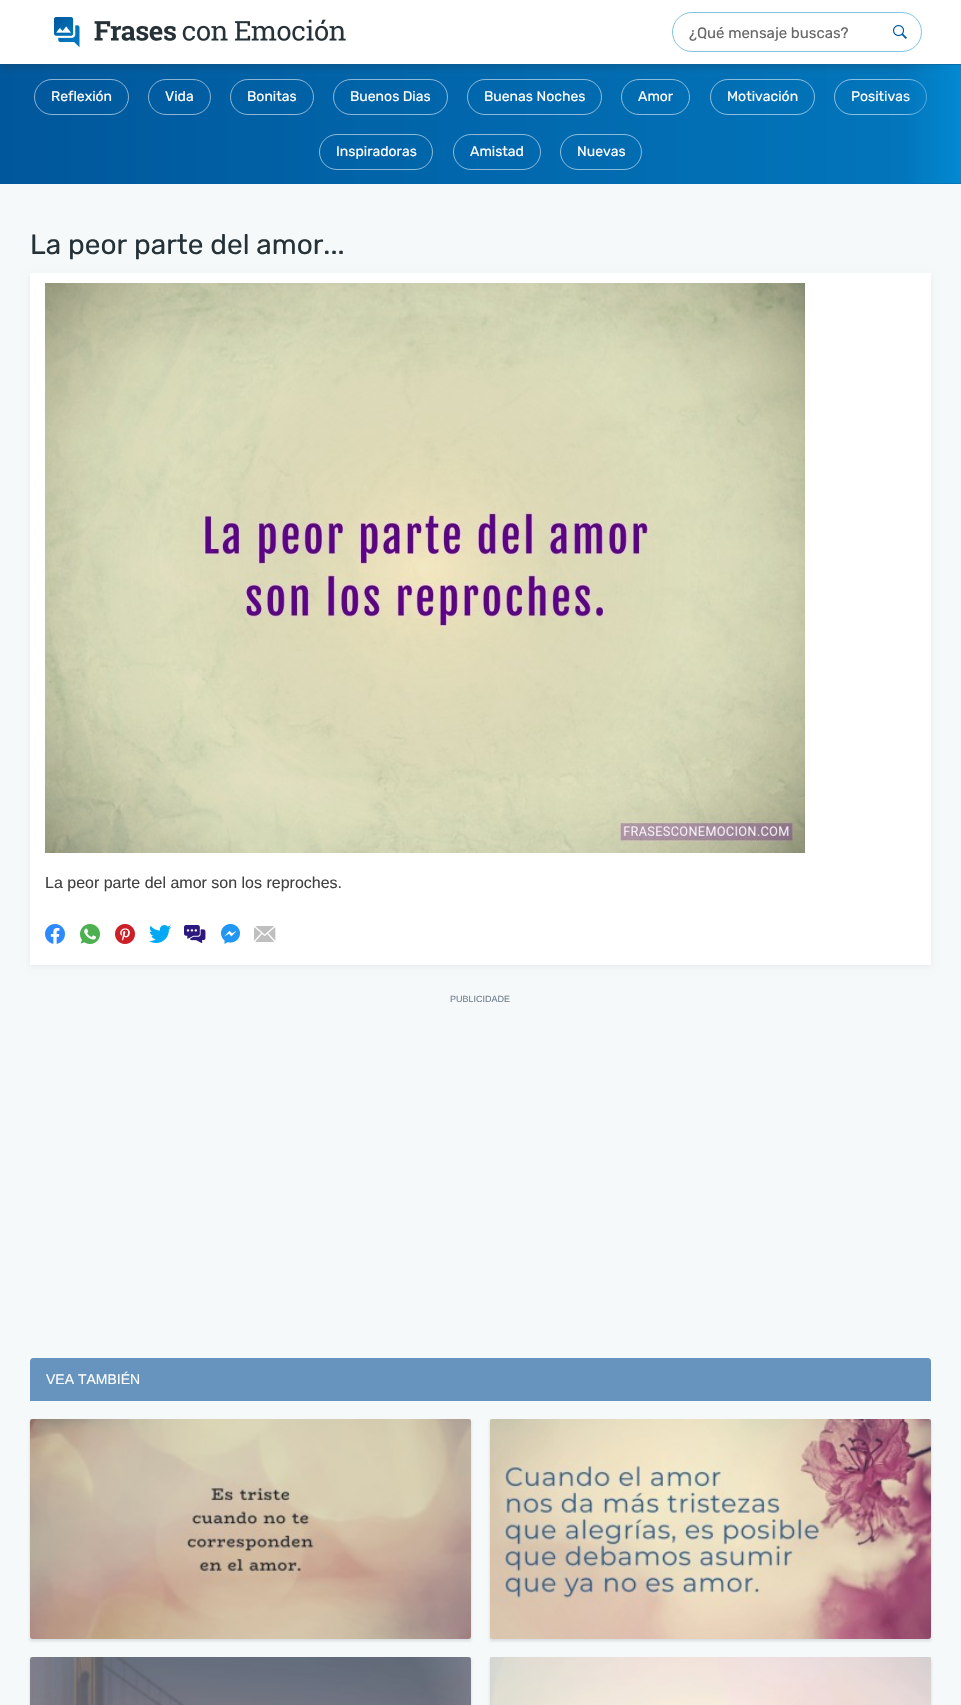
void draw(SkCanvas* canvas) {
	SkPaint paint;
	paint.setAntiAlias(true);
	auto svgPath = [&](const char* data, bool evenOdd = false) {
		SkPath result = *SkParsePath::FromSVGString(data);
		if (evenOdd) result.setFillType(SkPathFillType::kEvenOdd);
		return result;
	};
	canvas->clear(0xfff5f9fa);
	{
		const SkColor colors[] = {0xff0277bd, 0xff01579b};
		const float stops[] = {0, 1};
		const SkPoint ends[] = {{961, 124}, {0, 124}};
		paint.setShader(SkGradientShader::MakeLinear(ends, colors, stops, 2, SkTileMode::kClamp));
		paint.setAlpha(255);
	}
	canvas->drawRect(SkRect::MakeXYWH(0, 64, 961, 120), paint);
	paint.setShader(nullptr);
	paint.setColor(0x33263238);
	paint.setMaskFilter(SkMaskFilter::MakeBlur(kNormal_SkBlurStyle, 3));
	canvas->drawRect(SkRect::MakeXYWH(0, 4, 961, 64), paint);
	paint.setMaskFilter(nullptr);
	paint.setColor(0xffffffff);
	canvas->drawRect(SkRect::MakeXYWH(0, 0, 961, 64), paint);
	canvas->drawImageRect(SkImages::DeferredFromEncodedData(SkData::MakeFromFileName("img1.png")), SkRect::MakeXYWH(54, 17, 292, 30), SkSamplingOptions());
	paint.setStroke(true);
	paint.setStrokeWidth(1);
	paint.setColor(0xff81c4e8);
	canvas->drawRoundRect(SkRect::MakeXYWH(672.5, 12.5, 249, 39), 19.5, 19.5, paint);
	SkFont f1(fontMgr->matchFamilyStyle("Rubik", SkFontStyle::Normal()), 15);
	f1.setSubpixel(true);
	paint.setStroke(false);
	paint.setColor(0xff676767);
	canvas->drawString("¿Qué mensaje buscas?", 689, 38, f1, paint);
	canvas->drawImageRect(SkImages::DeferredFromEncodedData(SkData::MakeFromFileName("img2.png")), SkRect::MakeXYWH(893, 25, 14, 14), SkSamplingOptions());
	paint.setStroke(true);
	paint.setColor(0x8affffff);
	canvas->drawRoundRect(SkRect::MakeXYWH(34.5, 79.5, 94, 35), 17.5, 17.5, paint);
	SkFont f2(fontMgr->matchFamilyStyle("Rubik", SkFontStyle::Normal()), 14);
	f2.setSubpixel(true);
	paint.setStroke(false);
	paint.setColor(0xffffffff);
	canvas->drawString("Reflexión", 51, 101, f2, paint);
	paint.setStroke(true);
	paint.setColor(0xff8ab4d4);
	canvas->drawRoundRect(SkRect::MakeXYWH(148.5, 79.5, 62, 35), 17.5, 17.5, paint);
	paint.setStroke(false);
	paint.setColor(0xffffffff);
	canvas->drawString("Vida", 165, 101, f2, paint);
	paint.setStroke(true);
	paint.setColor(0x8affffff);
	canvas->drawRoundRect(SkRect::MakeXYWH(230.5, 79.5, 83, 35), 17.5, 17.5, paint);
	paint.setStroke(false);
	paint.setColor(0xffffffff);
	canvas->drawString("Bonitas", 247, 101, f2, paint);
	paint.setStroke(true);
	paint.setColor(0x8affffff);
	canvas->drawRoundRect(SkRect::MakeXYWH(333.5, 79.5, 114, 35), 17.5, 17.5, paint);
	paint.setStroke(false);
	paint.setColor(0xffffffff);
	canvas->drawString("Buenos Dias", 350, 101, f2, paint);
	paint.setStroke(true);
	paint.setColor(0x8affffff);
	canvas->drawRoundRect(SkRect::MakeXYWH(467.5, 79.5, 134, 35), 17.5, 17.5, paint);
	paint.setStroke(false);
	paint.setColor(0xffffffff);
	canvas->drawString("Buenas Noches", 484, 101, f2, paint);
	paint.setStroke(true);
	paint.setColor(0xff8bbcdc);
	canvas->drawRoundRect(SkRect::MakeXYWH(621.5, 79.5, 68, 35), 17.5, 17.5, paint);
	paint.setStroke(false);
	paint.setColor(0xffffffff);
	canvas->drawString("Amor", 638, 101, f2, paint);
	paint.setStroke(true);
	paint.setColor(0x8affffff);
	canvas->drawRoundRect(SkRect::MakeXYWH(710.5, 79.5, 104, 35), 17.5, 17.5, paint);
	paint.setStroke(false);
	paint.setColor(0xffffffff);
	canvas->drawString("Motivación", 727, 101, f2, paint);
	paint.setStroke(true);
	paint.setColor(0x8affffff);
	canvas->drawRoundRect(SkRect::MakeXYWH(834.5, 79.5, 92, 35), 17.5, 17.5, paint);
	paint.setStroke(false);
	paint.setColor(0xffffffff);
	canvas->drawString("Positivas", 851, 101, f2, paint);
	paint.setStroke(true);
	paint.setColor(0x8affffff);
	canvas->drawRoundRect(SkRect::MakeXYWH(319.5, 134.5, 113, 35), 17.5, 17.5, paint);
	paint.setStroke(false);
	paint.setColor(0xffffffff);
	canvas->drawString("Inspiradoras", 336, 156, f2, paint);
	paint.setStroke(true);
	paint.setColor(0x8affffff);
	canvas->drawRoundRect(SkRect::MakeXYWH(453.5, 134.5, 87, 35), 17.5, 17.5, paint);
	paint.setStroke(false);
	paint.setColor(0xffffffff);
	canvas->drawString("Amistad", 470, 156, f2, paint);
	paint.setStroke(true);
	paint.setColor(0x8affffff);
	canvas->drawRoundRect(SkRect::MakeXYWH(560.5, 134.5, 81, 35), 17.5, 17.5, paint);
	paint.setStroke(false);
	paint.setColor(0xffffffff);
	canvas->drawString("Nuevas", 577, 156, f2, paint);
	{
		const SkColor colors[] = {0xff0288d1, 0x000288d1};
		const float stops[] = {0, 1};
		const SkPoint ends[] = {{961, 124}, {901, 124}};
		paint.setShader(SkGradientShader::MakeLinear(ends, colors, stops, 2, SkTileMode::kClamp));
		paint.setAlpha(255);
	}
	canvas->drawRect(SkRect::MakeXYWH(902, 65, 59, 118), paint);
	SkFont f3(fontMgr->matchFamilyStyle("Rubik", SkFontStyle::Normal()), 28);
	f3.setSubpixel(true);
	paint.setShader(nullptr);
	paint.setColor(0xff263238);
	canvas->drawString("La peor parte del amor...", 30, 254, f3, paint);
	paint.setColor(0x0d000000);
	paint.setMaskFilter(SkMaskFilter::MakeBlur(kNormal_SkBlurStyle, 3));
	canvas->drawRect(SkRect::MakeXYWH(30, 275, 901, 692), paint);
	paint.setMaskFilter(nullptr);
	paint.setColor(0xffffffff);
	canvas->drawRect(SkRect::MakeXYWH(30, 273, 901, 692), paint);
	canvas->drawImageRect(SkImages::DeferredFromEncodedData(SkData::MakeFromFileName("img3.png")), SkRect::MakeXYWH(45, 283, 760, 570), SkSamplingOptions());
	SkFont f4(fontMgr->matchFamilyStyle("Liberation Sans", SkFontStyle::Normal()), 16);
	f4.setSubpixel(true);
	paint.setColor(0xff404040);
	canvas->drawString("La peor parte del amor son los reproches.", 45, 888, f4, paint);
	canvas->drawImageRect(SkImages::DeferredFromEncodedData(SkData::MakeFromFileName("img4.png")), SkRect::MakeXYWH(45, 924, 20, 20), SkSamplingOptions());
	canvas->drawImageRect(SkImages::DeferredFromEncodedData(SkData::MakeFromFileName("img5.png")), SkRect::MakeXYWH(80, 924, 20, 20), SkSamplingOptions());
	canvas->drawImageRect(SkImages::DeferredFromEncodedData(SkData::MakeFromFileName("img6.png")), SkRect::MakeXYWH(115, 924, 20, 20), SkSamplingOptions());
	canvas->drawImageRect(SkImages::DeferredFromEncodedData(SkData::MakeFromFileName("img7.png")), SkRect::MakeXYWH(149, 925, 22, 18), SkSamplingOptions());
	canvas->drawImageRect(SkImages::DeferredFromEncodedData(SkData::MakeFromFileName("img8.png")), SkRect::MakeXYWH(184, 925, 22, 18), SkSamplingOptions());
	canvas->drawImageRect(SkImages::DeferredFromEncodedData(SkData::MakeFromFileName("img9.png")), SkRect::MakeXYWH(221, 924, 19, 20), SkSamplingOptions());
	canvas->drawImageRect(SkImages::DeferredFromEncodedData(SkData::MakeFromFileName("img10.png")), SkRect::MakeXYWH(254, 926, 22, 16), SkSamplingOptions());
	SkFont f5(fontMgr->matchFamilyStyle("Liberation Sans", SkFontStyle::Normal()), 9);
	f5.setSubpixel(true);
	paint.setColor(0xff6f7e8a);
	canvas->drawString("PUBLICIDADE", 450, 1002, f5, paint);
	paint.setColor(0xff6694be);
	canvas->drawPath(svgPath("M33 1358H928C929.5 1358 931 1359.5 931 1361V1401H30V1361C30 1359.5 31.5 1358 33 1358Z"), paint);
	SkFont f6(fontMgr->matchFamilyStyle("Liberation Sans", SkFontStyle::Normal()), 14);
	f6.setSubpixel(true);
	paint.setColor(0xffffffff);
	canvas->drawString("VEA TAMBIÉN", 46, 1384, f6, paint);
	paint.setColor(0x26263238);
	paint.setMaskFilter(SkMaskFilter::MakeBlur(kNormal_SkBlurStyle, 1.5));
	canvas->drawRect(SkRect::MakeXYWH(30, 1421, 441, 220), paint);
	paint.setMaskFilter(nullptr);
	paint.setStroke(true);
	paint.setColor(0xffdadbdc);
	canvas->drawRect(SkRect::MakeXYWH(30.5, 1419.5, 440, 219), paint);
	canvas->drawImageRect(SkImages::DeferredFromEncodedData(SkData::MakeFromFileName("img11.png")), SkRect::MakeXYWH(30, 1419, 441, 220), SkSamplingOptions());
	paint.setStroke(false);
	paint.setColor(0x26263238);
	paint.setMaskFilter(SkMaskFilter::MakeBlur(kNormal_SkBlurStyle, 1.5));
	canvas->drawRect(SkRect::MakeXYWH(490, 1421, 441, 220), paint);
	paint.setMaskFilter(nullptr);
	paint.setStroke(true);
	paint.setColor(0xffdadbdc);
	canvas->drawRect(SkRect::MakeXYWH(490.5, 1419.5, 440, 219), paint);
	canvas->drawImageRect(SkImages::DeferredFromEncodedData(SkData::MakeFromFileName("img12.png")), SkRect::MakeXYWH(490, 1419, 441, 220), SkSamplingOptions());
	paint.setStroke(false);
	paint.setColor(0x26263238);
	paint.setMaskFilter(SkMaskFilter::MakeBlur(kNormal_SkBlurStyle, 1.5));
	canvas->drawRect(SkRect::MakeXYWH(30, 1659, 441, 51), paint);
	paint.setMaskFilter(nullptr);
	paint.setStroke(true);
	paint.setColor(0xffdadbdc);
	canvas->drawRect(SkRect::MakeXYWH(30.5, 1657.5, 440, 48), paint);
	canvas->drawImageRect(SkImages::DeferredFromEncodedData(SkData::MakeFromFileName("img13.png")), SkRect::MakeXYWH(30, 1657, 441, 48), SkSamplingOptions());
	paint.setStroke(false);
	paint.setColor(0x26263238);
	paint.setMaskFilter(SkMaskFilter::MakeBlur(kNormal_SkBlurStyle, 1.5));
	canvas->drawRect(SkRect::MakeXYWH(490, 1659, 441, 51), paint);
	paint.setMaskFilter(nullptr);
	paint.setStroke(true);
	paint.setColor(0xffdadbdc);
	canvas->drawRect(SkRect::MakeXYWH(490.5, 1657.5, 440, 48), paint);
	canvas->drawImageRect(SkImages::DeferredFromEncodedData(SkData::MakeFromFileName("img14.png")), SkRect::MakeXYWH(490, 1657, 441, 48), SkSamplingOptions());
}
